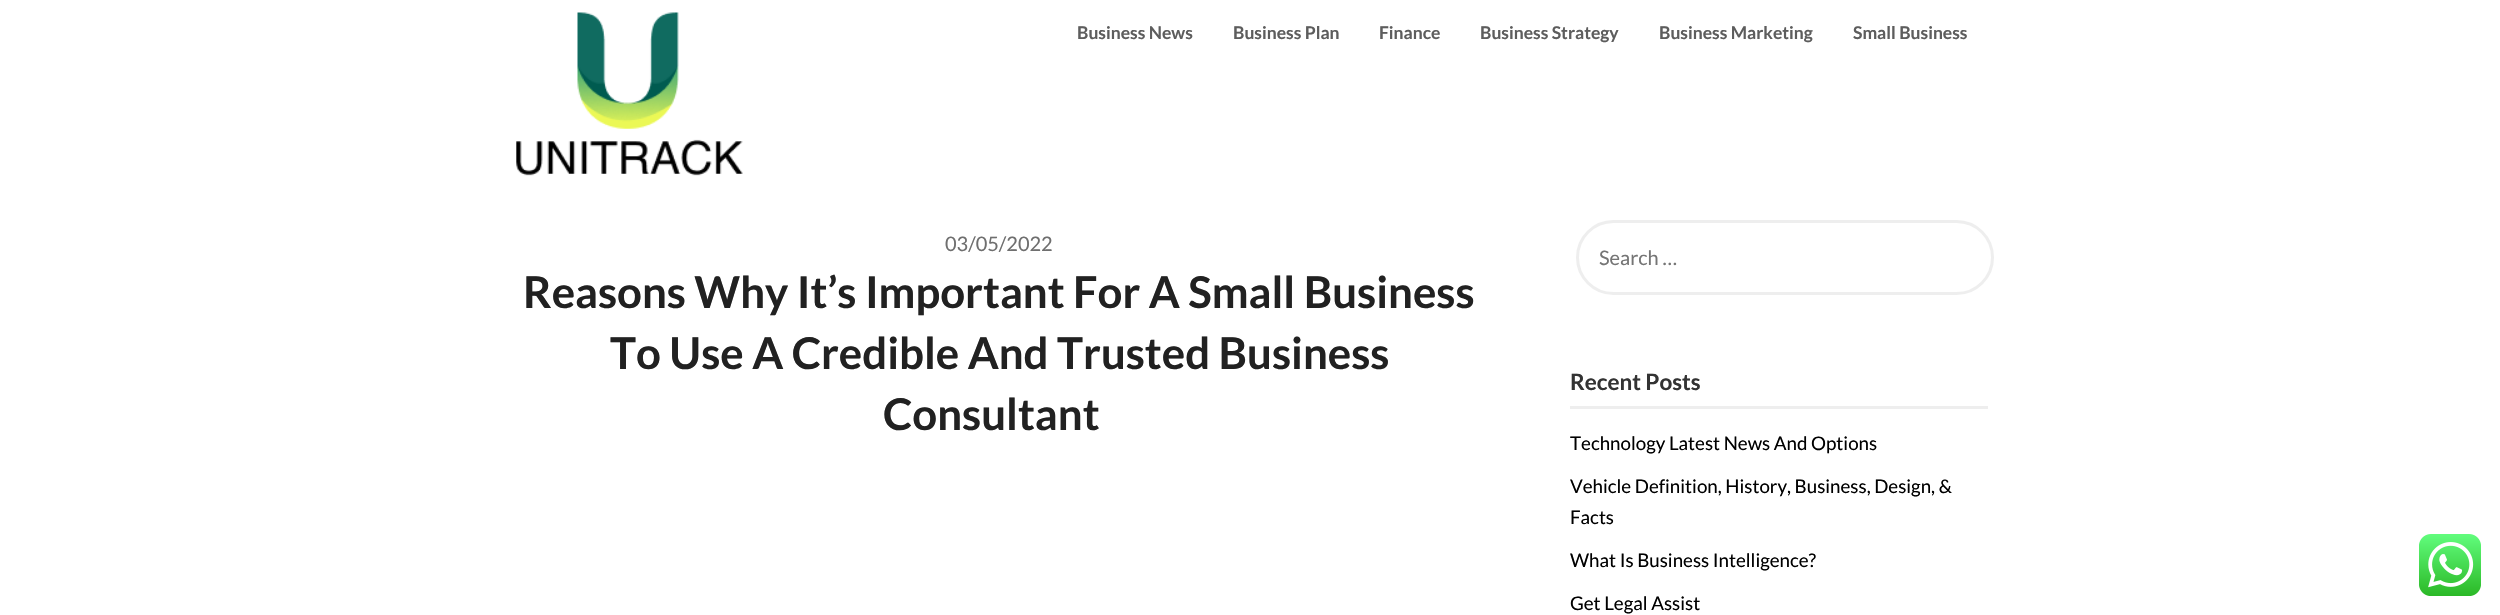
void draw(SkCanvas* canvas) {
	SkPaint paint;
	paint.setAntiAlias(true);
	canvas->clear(0xffffffff);
	canvas->drawImageRect(SkImages::DeferredFromEncodedData(SkData::MakeFromFileName("img1.png")), SkRect::MakeXYWH(516, 12, 227, 164), SkSamplingOptions());
	SkFont f1(fontMgr->matchFamilyStyle("Lato", SkFontStyle::Bold()), 17.5);
	f1.setSubpixel(true);
	paint.setColor(0xff5d5d5d);
	canvas->drawString("Business News", 1077, 39, f1, paint);
	canvas->drawString("Business Plan", 1233, 39, f1, paint);
	canvas->drawString("Finance", 1379, 39, f1, paint);
	canvas->drawString("Business Strategy", 1480, 39, f1, paint);
	canvas->drawString("Business Marketing", 1659, 39, f1, paint);
	canvas->drawString("Small Business", 1853, 39, f1, paint);
	SkFont f2(fontMgr->matchFamilyStyle("Lato", SkFontStyle::Normal()), 20);
	f2.setSubpixel(true);
	paint.setColor(0xff6f6f6f);
	canvas->drawString("03/05/2022", 945, 251, f2, paint);
	SkFont f3(fontMgr->matchFamilyStyle("Lato", SkFontStyle::Bold()), 43.75);
	f3.setSubpixel(true);
	paint.setColor(0xff212121);
	canvas->drawString("Reasons Why It’s Important For A Small Business", 523, 308, f3, paint);
	canvas->drawString("To Use A Credible And Trusted Business", 610, 369, f3, paint);
	canvas->drawString("Consultant", 883, 430, f3, paint);
	paint.setStroke(true);
	paint.setStrokeWidth(3);
	paint.setColor(0xffeeeeee);
	canvas->drawRoundRect(SkRect::MakeXYWH(1577.5, 221.5, 415, 72), 36, 36, paint);
	paint.setStroke(false);
	paint.setColor(0xff757575);
	canvas->drawString("Search …", 1599, 265, f2, paint);
	paint.setColor(0xffeeeeee);
	canvas->drawRect(SkRect::MakeXYWH(1570, 406, 418, 3), paint);
	SkFont f4(fontMgr->matchFamilyStyle("Lato", SkFontStyle::Bold()), 22.5);
	f4.setSubpixel(true);
	paint.setColor(0xff333333);
	canvas->drawString("Recent Posts", 1570, 390, f4, paint);
	SkFont f5(fontMgr->matchFamilyStyle("Lato", SkFontStyle::Normal()), 18.75);
	f5.setSubpixel(true);
	paint.setColor(0xff000000);
	canvas->drawString("Technology Latest News And Options", 1570, 450, f5, paint);
	canvas->drawString("Vehicle Definition, History, Business, Design, &", 1570, 493, f5, paint);
	canvas->drawString("Facts", 1570, 524, f5, paint);
	canvas->drawString("What Is Business Intelligence?", 1570, 567, f5, paint);
	canvas->drawString("Get Legal Assist", 1570, 610, f5, paint);
	canvas->drawImageRect(SkImages::DeferredFromEncodedData(SkData::MakeFromFileName("img2.png")), SkRect::MakeXYWH(2419, 534, 62, 62), SkSamplingOptions());
}
